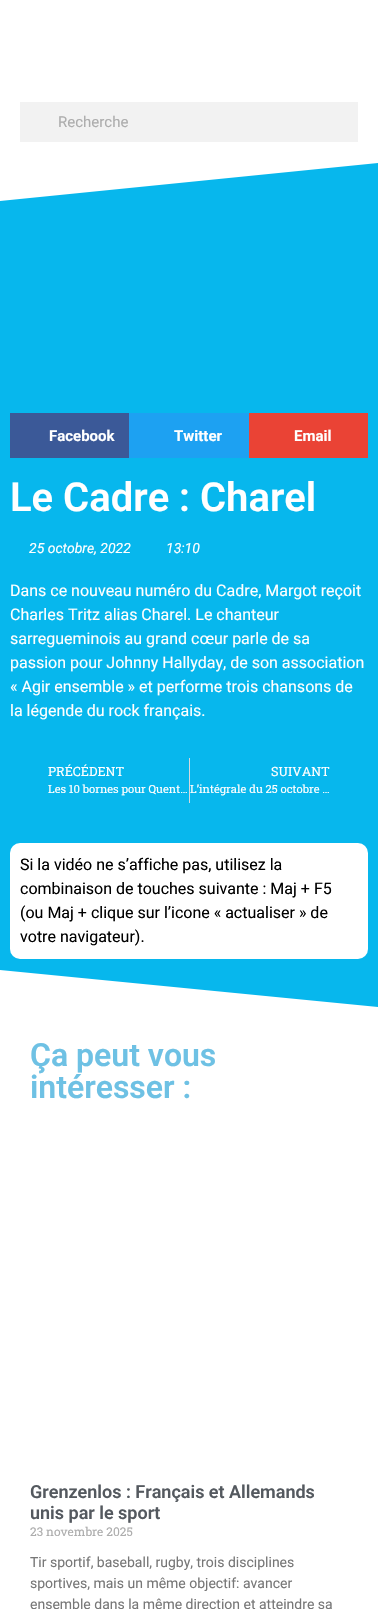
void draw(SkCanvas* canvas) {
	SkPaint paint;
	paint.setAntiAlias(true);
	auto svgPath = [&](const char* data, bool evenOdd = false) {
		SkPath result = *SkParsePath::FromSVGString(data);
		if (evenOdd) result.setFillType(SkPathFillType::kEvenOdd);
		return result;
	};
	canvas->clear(0xffffffff);
	paint.setColor(0xfff2f2f2);
	canvas->drawRect(SkRect::MakeXYWH(20, 102, 338, 40), paint);
	SkFont f1(fontMgr->matchFamilyStyle("Roboto", SkFontStyle::Normal()), 15);
	f1.setSubpixel(true);
	paint.setColor(0xffadadad);
	canvas->drawString("Recherche", 58, 127, f1, paint);
	paint.setColor(0xff07b7ed);
	canvas->drawRect(SkRect::MakeXYWH(0, 163, 378, 844), paint);
	paint.setColor(0xffffffff);
	canvas->drawPath(svgPath("M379 163V161H-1V201Z"), paint);
	paint.setColor(0xff3b5998);
	canvas->drawRect(SkRect::MakeXYWH(10, 413, 119, 45), paint);
	SkFont f2(fontMgr->matchFamilyStyle("Roboto", SkFontStyle::Bold()), 15);
	f2.setSubpixel(true);
	paint.setColor(0xffffffff);
	canvas->drawString("Facebook", 49, 441, f2, paint);
	paint.setColor(0xff1da1f2);
	canvas->drawRect(SkRect::MakeXYWH(129, 413, 120, 45), paint);
	paint.setColor(0xffffffff);
	canvas->drawString("Twitter", 174, 441, f2, paint);
	paint.setColor(0xffea4335);
	canvas->drawRect(SkRect::MakeXYWH(249, 413, 119, 45), paint);
	paint.setColor(0xffffffff);
	canvas->drawString("Email", 294, 441, f2, paint);
	SkFont f3(fontMgr->matchFamilyStyle("Roboto", SkFontStyle(600, SkFontStyle::kNormal_Width, SkFontStyle::kUpright_Slant)), 40);
	f3.setSubpixel(true);
	canvas->drawString("Le Cadre : Charel", 10, 511, f3, paint);
	SkFont f4(fontMgr->matchFamilyStyle("Roboto", SkFontStyle::Italic()), 14);
	f4.setSubpixel(true);
	canvas->drawString("25 octobre, 2022", 29, 553, f4, paint);
	canvas->drawString("13:10", 166, 553, f4, paint);
	SkFont f5(fontMgr->matchFamilyStyle("Roboto", SkFontStyle::Normal()), 16);
	f5.setSubpixel(true);
	canvas->drawString("Dans ce nouveau numéro du Cadre, Margot reçoit", 10, 596, f5, paint);
	canvas->drawString("Charles Tritz alias Charel. Le chanteur", 10, 620, f5, paint);
	canvas->drawString("sarregueminois au grand cœur parle de sa", 10, 644, f5, paint);
	canvas->drawString("passion pour Johnny Hallyday, de son association", 10, 668, f5, paint);
	canvas->drawString("« Agir ensemble » et performe trois chansons de", 10, 692, f5, paint);
	canvas->drawString("la légende du rock français.", 10, 716, f5, paint);
	SkFont f6(fontMgr->matchFamilyStyle("Roboto Slab", SkFontStyle::Normal()), 12.75);
	f6.setSubpixel(true);
	canvas->drawString("PRÉCÉDENT", 48, 776, f6, paint);
	SkFont f7(fontMgr->matchFamilyStyle("Roboto Slab", SkFontStyle::Normal()), 11.25);
	f7.setSubpixel(true);
	canvas->drawString("Les 10 bornes pour Quent…", 48, 793, f7, paint);
	paint.setColor(0xffd5d8dc);
	canvas->drawRect(SkRect::MakeXYWH(189, 758, 1, 45), paint);
	paint.setColor(0xffffffff);
	canvas->drawString("SUIVANT", 271, 776, f6, paint);
	canvas->drawString("L’intégrale du 25 octobre …", 190, 793, f7, paint);
	canvas->drawRoundRect(SkRect::MakeXYWH(10, 843, 358, 116), 10, 10, paint);
	paint.setColor(0xff000000);
	canvas->drawString("Si la vidéo ne s’affiche pas, utilisez la", 20, 870, f5, paint);
	canvas->drawString("combinaison de touches suivante : Maj + F5", 20, 894, f5, paint);
	canvas->drawString("(ou Maj + clique sur l’icone « actualiser » de", 20, 918, f5, paint);
	canvas->drawString("votre navigateur).", 20, 942, f5, paint);
	paint.setColor(0xffffffff);
	canvas->drawPath(svgPath("M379 1007V1010H-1V970Z"), paint);
	SkFont f8(fontMgr->matchFamilyStyle("Roboto", SkFontStyle(600, SkFontStyle::kNormal_Width, SkFontStyle::kUpright_Slant)), 32);
	f8.setSubpixel(true);
	paint.setColor(0xff6ec1e4);
	canvas->drawString("Ça peut vous", 30, 1066, f8, paint);
	canvas->drawString("intéresser :", 30, 1098, f8, paint);
	SkFont f9(fontMgr->matchFamilyStyle("Roboto", SkFontStyle(600, SkFontStyle::kNormal_Width, SkFontStyle::kUpright_Slant)), 18);
	f9.setSubpixel(true);
	paint.setColor(0xff54595f);
	canvas->drawString("Grenzenlos : Français et Allemands", 30, 1498, f9, paint);
	canvas->drawString("unis par le sport", 30, 1519, f9, paint);
	SkFont f10(fontMgr->matchFamilyStyle("Roboto Slab", SkFontStyle::Normal()), 12);
	f10.setSubpixel(true);
	paint.setColor(0xffadadad);
	canvas->drawString("23 novembre 2025", 30, 1536, f10, paint);
	SkFont f11(fontMgr->matchFamilyStyle("Roboto", SkFontStyle::Normal()), 14);
	f11.setSubpixel(true);
	paint.setColor(0xff777777);
	canvas->drawString("Tir sportif, baseball, rugby, trois disciplines", 30, 1567, f11, paint);
	canvas->drawString("sportives, mais un même objectif : avancer", 30, 1588, f11, paint);
	canvas->drawString("ensemble dans la même direction et atteindre sa", 30, 1609, f11, paint);
}
